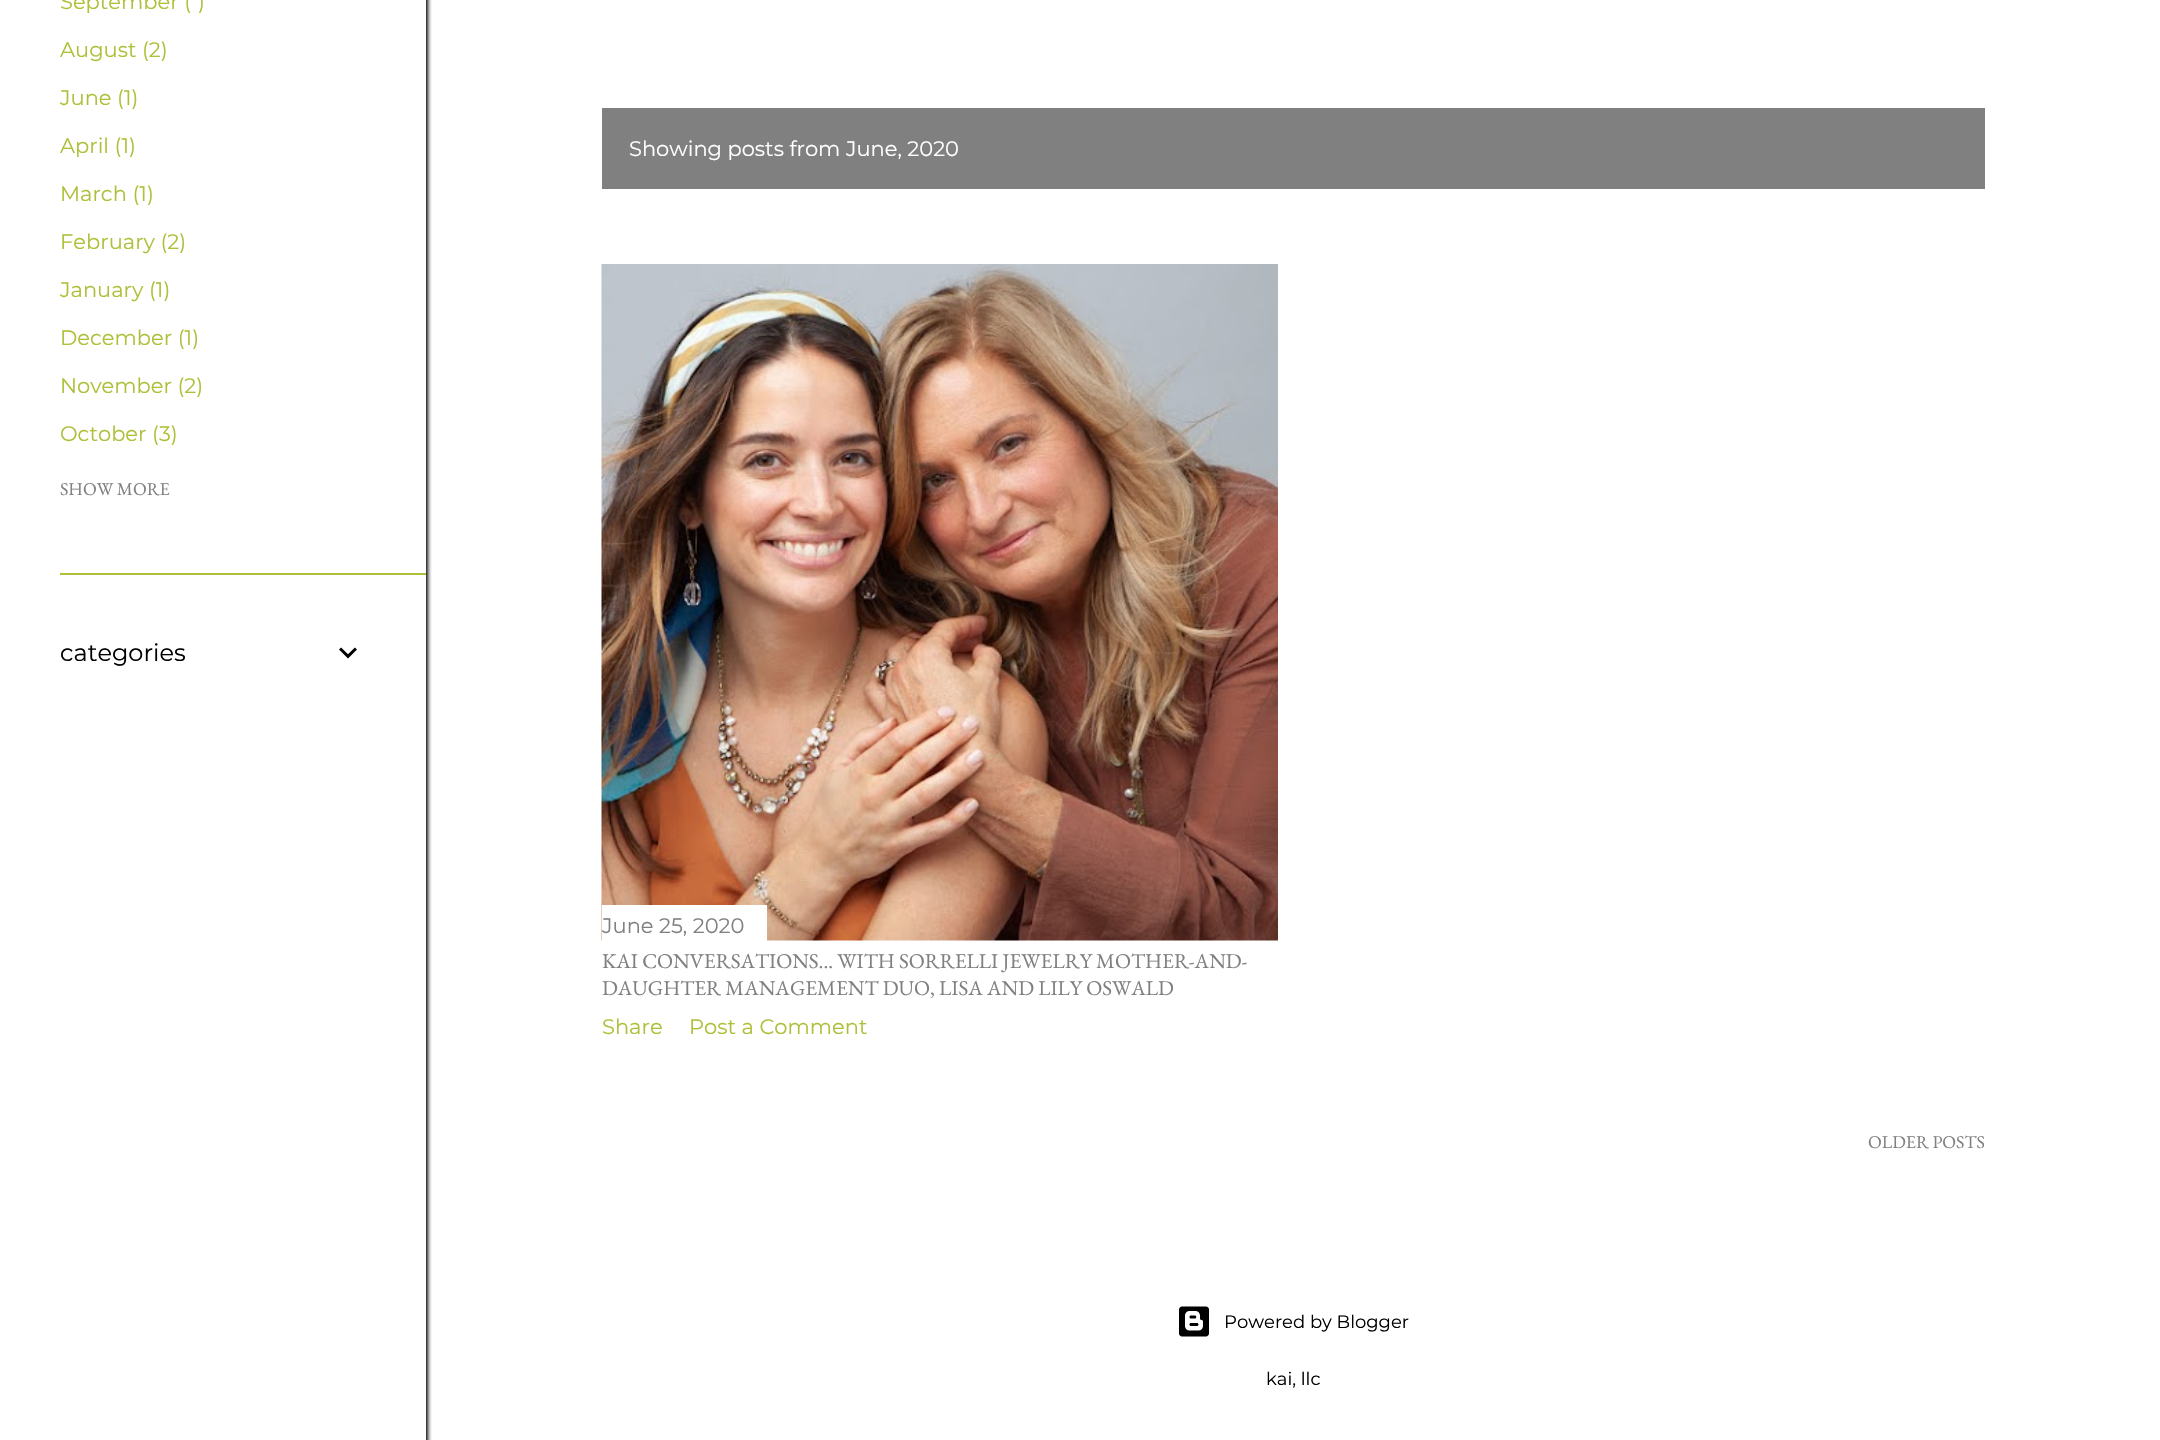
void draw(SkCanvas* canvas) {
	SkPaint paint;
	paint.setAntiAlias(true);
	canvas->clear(0xffffffff);
	canvas->save();
	canvas->clipRect(SkRect::MakeXYWH(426, 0, 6, 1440));
	paint.setColor(0xff000000);
	paint.setMaskFilter(SkMaskFilter::MakeBlur(kNormal_SkBlurStyle, 2));
	canvas->drawRect(SkRect::MakeXYWH(2, -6, 426, 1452), paint);
	paint.setMaskFilter(nullptr);
	canvas->restore();
	SkFont f1(fontMgr->matchFamilyStyle("Montserrat", SkFontStyle::Normal()), 21);
	f1.setSubpixel(true);
	paint.setColor(0xffafbf38);
	canvas->drawString("September (", 60, 9, f1, paint);
	canvas->drawString(")", 198, 9, f1, paint);
	canvas->drawString("August (2)", 60, 57, f1, paint);
	canvas->drawString("June (1)", 60, 105, f1, paint);
	canvas->drawString("April (1)", 60, 153, f1, paint);
	canvas->drawString("March (1)", 60, 201, f1, paint);
	canvas->drawString("February (2)", 60, 249, f1, paint);
	canvas->drawString("January (1)", 60, 297, f1, paint);
	canvas->drawString("December (1)", 60, 345, f1, paint);
	canvas->drawString("November (2)", 60, 393, f1, paint);
	canvas->drawString("October (3)", 60, 441, f1, paint);
	SkFont f2(fontMgr->matchFamilyStyle("EB Garamond", SkFontStyle::Normal()), 18);
	f2.setSubpixel(true);
	paint.setColor(0xff808080);
	canvas->drawString("SHOW MORE", 60, 495, f2, paint);
	paint.setColor(0xffafbf38);
	canvas->drawRect(SkRect::MakeXYWH(60, 573, 366, 2), paint);
	SkFont f3(fontMgr->matchFamilyStyle("Montserrat", SkFontStyle::Normal()), 24);
	f3.setSubpixel(true);
	paint.setColor(0xff000000);
	canvas->drawString("categories", 60, 661, f3, paint);
	canvas->drawImageRect(SkImages::DeferredFromEncodedData(SkData::MakeFromFileName("img1.png")), SkRect::MakeXYWH(339, 647, 18, 12), SkSamplingOptions());
	paint.setColor(0xff808080);
	canvas->drawRect(SkRect::MakeXYWH(602, 108, 1383, 81), paint);
	paint.setColor(0xffffffff);
	canvas->drawString("Showing posts from June, 2020", 629, 156, f1, paint);
	canvas->drawImageRect(SkImages::DeferredFromEncodedData(SkData::MakeFromFileName("img2.png")), SkRect::MakeXYWH(601, 264, 677, 677), SkSamplingOptions());
	canvas->drawRect(SkRect::MakeXYWH(602, 905, 165, 36), paint);
	paint.setColor(0xff808080);
	canvas->drawString("June 25, 2020", 602, 933, f1, paint);
	SkFont f4(fontMgr->matchFamilyStyle("EB Garamond", SkFontStyle::Normal()), 21);
	f4.setSubpixel(true);
	canvas->drawString("KAI CONVERSATIONS... WITH SORRELLI JEWELRY MOTHER-AND-", 602, 968, f4, paint);
	canvas->drawString("DAUGHTER MANAGEMENT DUO, LISA AND LILY OSWALD", 602, 995, f4, paint);
	paint.setColor(0xffafbf38);
	canvas->drawString("Share", 602, 1034, f1, paint);
	canvas->drawString("Post a Comment", 689, 1034, f1, paint);
	paint.setColor(0xff808080);
	canvas->drawString("OLDER POSTS", 1868, 1148, f2, paint);
	canvas->drawImageRect(SkImages::DeferredFromEncodedData(SkData::MakeFromFileName("img3.png")), SkRect::MakeXYWH(1179, 1306, 30, 31), SkSamplingOptions());
	SkFont f5(fontMgr->matchFamilyStyle("Montserrat", SkFontStyle::Normal()), 18);
	f5.setSubpixel(true);
	paint.setColor(0xff000000);
	canvas->drawString("Powered by Blogger", 1224, 1328, f5, paint);
	canvas->drawString("kai, llc", 1266, 1385, f5, paint);
}
